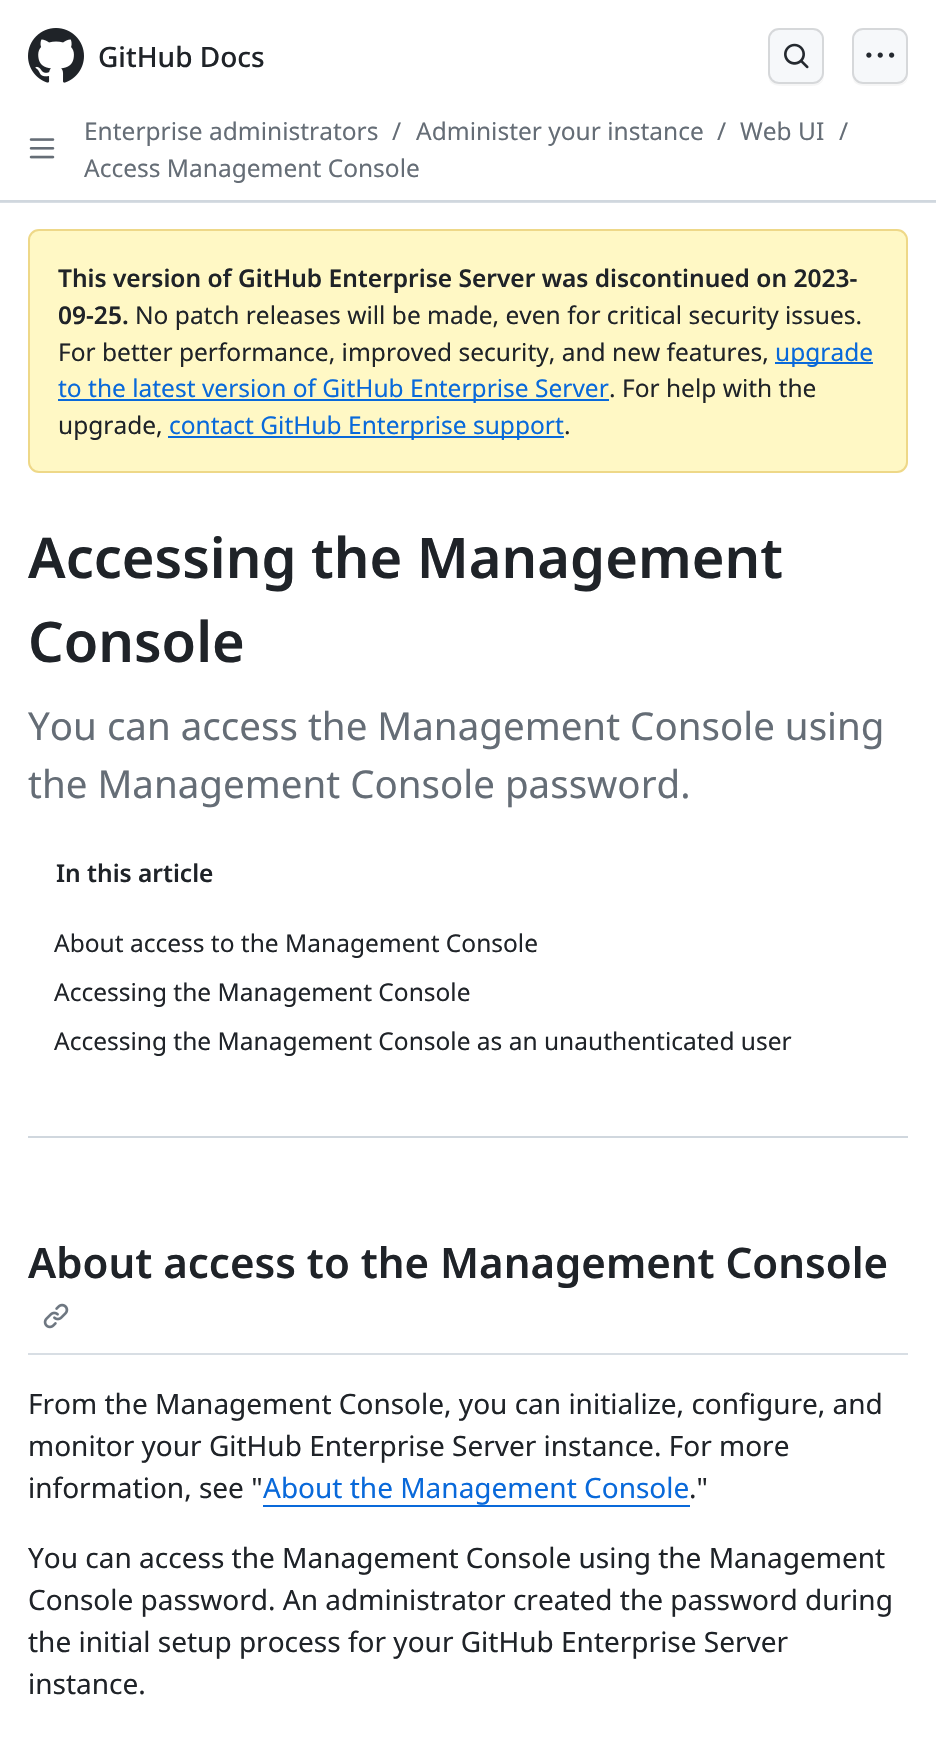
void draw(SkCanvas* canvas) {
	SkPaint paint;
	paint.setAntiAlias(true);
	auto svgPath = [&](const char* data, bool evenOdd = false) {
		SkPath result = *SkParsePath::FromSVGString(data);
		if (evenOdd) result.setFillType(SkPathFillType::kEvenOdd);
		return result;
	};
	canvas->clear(0xffffffff);
	paint.setColor(0xffd8dee4);
	canvas->drawRect(SkRect::MakeXYWH(0, 202, 936, 1), paint);
	paint.setColor(0xffd0d7de);
	canvas->drawRect(SkRect::MakeXYWH(0, 200, 936, 2), paint);
	canvas->drawImageRect(SkImages::DeferredFromEncodedData(SkData::MakeFromFileName("img1.png")), SkRect::MakeXYWH(28, 28, 56, 55), SkSamplingOptions());
	SkFont f1(fontMgr->matchFamilyStyle("Noto Sans", SkFontStyle(500, SkFontStyle::kNormal_Width, SkFontStyle::kUpright_Slant)), 28);
	f1.setSubpixel(true);
	paint.setColor(0xff1f2328);
	canvas->drawString("GitHub Docs", 98, 67, f1, paint);
	paint.setColor(0xfff6f6f6);
	canvas->drawPath(svgPath("M768 39V64C768 85 769 86 790 86H807C815 86 823 86 824 76C823 81 819 84 814 84H779C773 84 768 79 768 74Z"), paint);
	paint.setColor(0xfff6f8fa);
	canvas->drawRoundRect(SkRect::MakeXYWH(768, 28, 56, 56), 11, 11, paint);
	paint.setStroke(true);
	paint.setStrokeWidth(2);
	paint.setColor(0x261f2328);
	canvas->drawRoundRect(SkRect::MakeXYWH(769, 29, 54, 54), 10, 10, paint);
	canvas->drawImageRect(SkImages::DeferredFromEncodedData(SkData::MakeFromFileName("img2.png")), SkRect::MakeXYWH(784, 43, 25, 26), SkSamplingOptions());
	paint.setStroke(false);
	paint.setColor(0xfff6f6f6);
	canvas->drawPath(svgPath("M852 39V64C852 85 853 86 874 86H891C899 86 907 86 908 76C907 81 903 84 898 84H863C857 84 852 79 852 74Z"), paint);
	paint.setColor(0xfff6f8fa);
	canvas->drawRoundRect(SkRect::MakeXYWH(852, 28, 56, 56), 11, 11, paint);
	paint.setStroke(true);
	paint.setColor(0x261f2328);
	canvas->drawRoundRect(SkRect::MakeXYWH(853, 29, 54, 54), 10, 10, paint);
	canvas->drawImageRect(SkImages::DeferredFromEncodedData(SkData::MakeFromFileName("img3.png")), SkRect::MakeXYWH(866, 52, 29, 6), SkSamplingOptions());
	canvas->drawImageRect(SkImages::DeferredFromEncodedData(SkData::MakeFromFileName("img4.png")), SkRect::MakeXYWH(29, 138, 26, 21), SkSamplingOptions());
	SkFont f2(fontMgr->matchFamilyStyle("Noto Sans", SkFontStyle::Normal()), 24.5);
	f2.setSubpixel(true);
	paint.setStroke(false);
	paint.setColor(0xff656d76);
	canvas->drawString("Enterprise administrators", 84, 140, f2, paint);
	canvas->drawString("/", 392, 140, f2, paint);
	canvas->drawString("Administer your instance", 416, 140, f2, paint);
	canvas->drawString("/", 717, 140, f2, paint);
	canvas->drawString("Web UI", 740, 140, f2, paint);
	canvas->drawString("/", 839, 140, f2, paint);
	canvas->drawString("Access Management Console", 84, 177, f2, paint);
	paint.setColor(0xfffff8c5);
	canvas->drawRoundRect(SkRect::MakeXYWH(28, 229, 880, 244), 11, 11, paint);
	paint.setStroke(true);
	paint.setColor(0x66d4a72c);
	canvas->drawRoundRect(SkRect::MakeXYWH(29, 230, 878, 242), 10, 10, paint);
	SkFont f3(fontMgr->matchFamilyStyle("Noto Sans", SkFontStyle(600, SkFontStyle::kNormal_Width, SkFontStyle::kUpright_Slant)), 24.5);
	f3.setSubpixel(true);
	paint.setStroke(false);
	paint.setColor(0xff1f2328);
	canvas->drawString("This version of GitHub Enterprise Server was discontinued on 2023-", 58, 287, f3, paint);
	canvas->drawString("09-25.", 58, 324, f3, paint);
	canvas->drawString("No patch releases will be made, even for critical security issues.", 135, 324, f2, paint);
	canvas->drawString("For better performance, improved security, and new features,", 58, 361, f2, paint);
	paint.setColor(0xff0969da);
	canvas->drawRect(SkRect::MakeXYWH(775, 362, 98, 2), paint);
	canvas->drawString("upgrade", 775, 361, f2, paint);
	canvas->drawRect(SkRect::MakeXYWH(58, 399, 551, 2), paint);
	canvas->drawString("to the latest version of GitHub Enterprise Server", 58, 397, f2, paint);
	paint.setColor(0xff1f2328);
	canvas->drawString(". For help with the", 609, 397, f2, paint);
	canvas->drawString("upgrade,", 58, 434, f2, paint);
	paint.setColor(0xff0969da);
	canvas->drawRect(SkRect::MakeXYWH(168, 436, 396, 2), paint);
	canvas->drawString("contact GitHub Enterprise support", 169, 434, f2, paint);
	paint.setColor(0xff1f2328);
	canvas->drawString(".", 564, 434, f2, paint);
	SkFont f4(fontMgr->matchFamilyStyle("Noto Sans", SkFontStyle(600, SkFontStyle::kNormal_Width, SkFontStyle::kUpright_Slant)), 56);
	f4.setSubpixel(true);
	canvas->drawString("Accessing the Management", 28, 578, f4, paint);
	canvas->drawString("Console", 28, 662, f4, paint);
	SkFont f5(fontMgr->matchFamilyStyle("Noto Sans", SkFontStyle::Normal()), 38.5);
	f5.setSubpixel(true);
	paint.setColor(0xff656d76);
	canvas->drawString("You can access the Management Console using", 28, 740, f5, paint);
	canvas->drawString("the Management Console password.", 28, 798, f5, paint);
	paint.setColor(0xffd0d7de);
	canvas->drawRect(SkRect::MakeXYWH(28, 1136, 880, 2), paint);
	paint.setColor(0xff1f2328);
	canvas->drawString("In this article", 56, 882, f3, paint);
	canvas->drawString("About access to the Management Console", 54, 952, f2, paint);
	canvas->drawString("Accessing the Management Console", 54, 1001, f2, paint);
	canvas->drawString("Accessing the Management Console as an unauthenticated user", 54, 1050, f2, paint);
	paint.setColor(0xffd8dee4);
	canvas->drawRect(SkRect::MakeXYWH(28, 1353, 880, 2), paint);
	SkFont f6(fontMgr->matchFamilyStyle("Noto Sans", SkFontStyle(600, SkFontStyle::kNormal_Width, SkFontStyle::kUpright_Slant)), 42);
	f6.setSubpixel(true);
	paint.setColor(0xff1f2328);
	canvas->drawString("About access to the Management Console", 28, 1278, f6, paint);
	canvas->drawImageRect(SkImages::DeferredFromEncodedData(SkData::MakeFromFileName("img5.png")), SkRect::MakeXYWH(43, 1303, 26, 26), SkSamplingOptions());
	SkFont f7(fontMgr->matchFamilyStyle("Noto Sans", SkFontStyle::Normal()), 28);
	f7.setSubpixel(true);
	canvas->drawString("From the Management Console, you can initialize, configure, and", 28, 1414, f7, paint);
	canvas->drawString("monitor your GitHub Enterprise Server instance. For more", 28, 1456, f7, paint);
	canvas->drawString("information, see \"", 28, 1498, f7, paint);
	paint.setColor(0xff0969da);
	canvas->drawString("About the Management Console", 263, 1498, f7, paint);
	canvas->drawRect(SkRect::MakeXYWH(263, 1505, 427, 2), paint);
	paint.setColor(0xff1f2328);
	canvas->drawString(".\"", 689, 1498, f7, paint);
	canvas->drawString("You can access the Management Console using the Management", 28, 1568, f7, paint);
	canvas->drawString("Console password. An administrator created the password during", 28, 1610, f7, paint);
	canvas->drawString("the initial setup process for your GitHub Enterprise Server", 28, 1652, f7, paint);
	canvas->drawString("instance.", 28, 1694, f7, paint);
}
